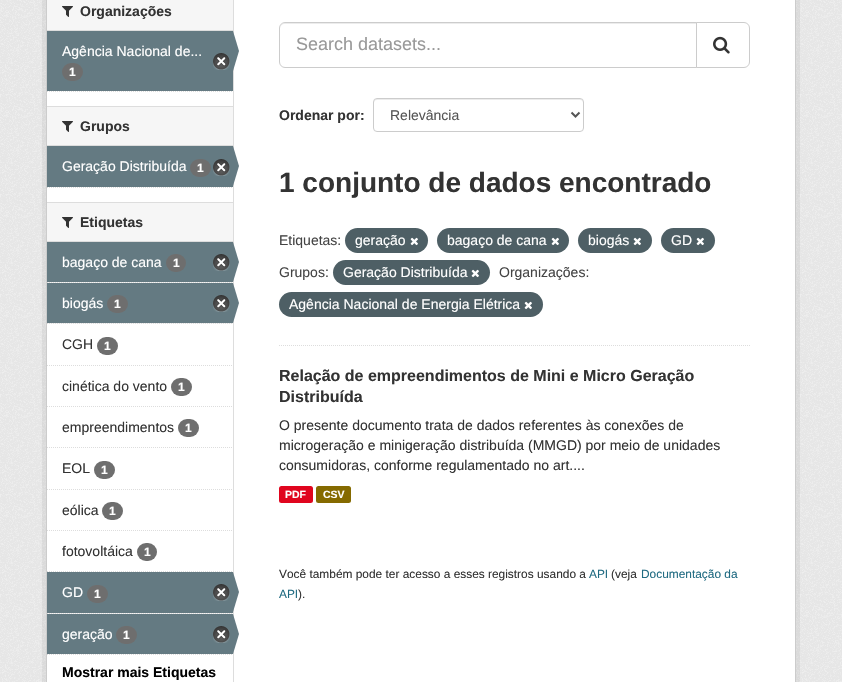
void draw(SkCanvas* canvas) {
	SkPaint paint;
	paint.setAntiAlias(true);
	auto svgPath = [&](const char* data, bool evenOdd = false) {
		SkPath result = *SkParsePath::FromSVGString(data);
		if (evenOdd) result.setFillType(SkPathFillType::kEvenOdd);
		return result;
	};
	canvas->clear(0xffeeeeee);
	canvas->drawImageRect(SkImages::DeferredFromEncodedData(SkData::MakeFromFileName("img1.png")), SkRect::MakeXYWH(0, 0, 842, 682), SkSamplingOptions());
	paint.setStroke(true);
	paint.setStrokeWidth(4);
	paint.setColor(0x0d000000);
	canvas->drawRect(SkRect::MakeXYWH(44, -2, 754, 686), paint);
	paint.setStroke(false);
	paint.setColor(0xffffffff);
	canvas->drawRect(SkRect::MakeXYWH(46.5, -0.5, 749, 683), paint);
	paint.setStroke(true);
	paint.setStrokeWidth(1);
	paint.setColor(0xffcccccc);
	canvas->drawRect(SkRect::MakeXYWH(46.5, -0.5, 749, 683), paint);
	paint.setStroke(false);
	paint.setColor(0xfff6f6f6);
	canvas->drawRect(SkRect::MakeXYWH(47, 0, 186, 30), paint);
	paint.setColor(0xffdddddd);
	canvas->drawRect(SkRect::MakeXYWH(47, 30, 186, 1), paint);
	canvas->drawImageRect(SkImages::DeferredFromEncodedData(SkData::MakeFromFileName("img2.png")), SkRect::MakeXYWH(62, 6, 11, 11), SkSamplingOptions());
	SkFont f1(fontMgr->matchFamilyStyle("Liberation Sans", SkFontStyle::Bold()), 14);
	f1.setSubpixel(true);
	paint.setColor(0xff333333);
	canvas->drawString("Organizações", 80, 16, f1, paint);
	paint.setColor(0xff647a82);
	canvas->drawRect(SkRect::MakeXYWH(47, 31, 186, 60), paint);
	SkFont f2(fontMgr->matchFamilyStyle("Liberation Sans", SkFontStyle::Normal()), 14);
	f2.setSubpixel(true);
	paint.setColor(0xffffffff);
	canvas->drawString("Agência Nacional de...", 62, 56, f2, paint);
	canvas->drawImageRect(SkImages::DeferredFromEncodedData(SkData::MakeFromFileName("img3.png")), SkRect::MakeXYWH(213, 53, 17, 17), SkSamplingOptions());
	paint.setColor(0xffdddddd);
	canvas->drawRect(SkRect::MakeXYWH(233, 0, 1, 682), paint);
	paint.setColor(0xff647a82);
	canvas->drawPath(svgPath("M233 71V31L239 51Z"), paint);
	paint.setColor(0xff6e6e6e);
	canvas->drawRoundRect(SkRect::MakeXYWH(62, 63, 21, 18), 9, 9, paint);
	SkFont f3(fontMgr->matchFamilyStyle("Liberation Sans", SkFontStyle::Bold()), 12);
	f3.setSubpixel(true);
	paint.setColor(0xffffffff);
	canvas->drawString("1", 69, 76, f3, paint);
	paint.setStroke(true);
	paint.setColor(0xffdddddd);
	paint.setPathEffect(SkDashPathEffect::Make({{1, 1}}, 0));
	canvas->drawPath(svgPath("M47 91.5H233"), paint);
	paint.setPathEffect(nullptr);
	paint.setStroke(false);
	paint.setColor(0xfff6f6f6);
	canvas->drawRect(SkRect::MakeXYWH(47, 107, 186, 38), paint);
	paint.setColor(0xffdddddd);
	canvas->drawRect(SkRect::MakeXYWH(47, 106, 186, 1), paint);
	canvas->drawRect(SkRect::MakeXYWH(47, 145, 186, 1), paint);
	canvas->drawImageRect(SkImages::DeferredFromEncodedData(SkData::MakeFromFileName("img2.png")), SkRect::MakeXYWH(62, 121, 11, 11), SkSamplingOptions());
	paint.setColor(0xff333333);
	canvas->drawString("Grupos", 80, 131, f1, paint);
	paint.setColor(0xff647a82);
	canvas->drawRect(SkRect::MakeXYWH(47, 146, 186, 41), paint);
	paint.setColor(0xffffffff);
	canvas->drawString("Geração Distribuída", 62, 171, f2, paint);
	paint.setColor(0xff6e6e6e);
	canvas->drawRoundRect(SkRect::MakeXYWH(190, 159, 21, 18), 9, 9, paint);
	paint.setColor(0xffffffff);
	canvas->drawString("1", 197, 172, f3, paint);
	canvas->drawImageRect(SkImages::DeferredFromEncodedData(SkData::MakeFromFileName("img3.png")), SkRect::MakeXYWH(213, 159, 17, 17), SkSamplingOptions());
	paint.setColor(0xff647a82);
	canvas->drawPath(svgPath("M233 186V146L239 166Z"), paint);
	paint.setStroke(true);
	paint.setColor(0xffdddddd);
	paint.setPathEffect(SkDashPathEffect::Make({{1, 1}}, 0));
	canvas->drawPath(svgPath("M47 187.5H233"), paint);
	paint.setPathEffect(nullptr);
	paint.setStroke(false);
	paint.setColor(0xfff6f6f6);
	canvas->drawRect(SkRect::MakeXYWH(47, 203, 186, 38), paint);
	paint.setColor(0xffdddddd);
	canvas->drawRect(SkRect::MakeXYWH(47, 202, 186, 1), paint);
	canvas->drawRect(SkRect::MakeXYWH(47, 241, 186, 1), paint);
	canvas->drawImageRect(SkImages::DeferredFromEncodedData(SkData::MakeFromFileName("img2.png")), SkRect::MakeXYWH(62, 217, 11, 11), SkSamplingOptions());
	paint.setColor(0xff333333);
	canvas->drawString("Etiquetas", 80, 227, f1, paint);
	paint.setColor(0xfff6f6f6);
	canvas->drawRect(SkRect::MakeXYWH(48, 282, 185, 1), paint);
	paint.setStroke(true);
	paint.setColor(0xffdddddd);
	paint.setPathEffect(SkDashPathEffect::Make({{1, 1}}, 0));
	canvas->drawPath(svgPath("M47 282.5H233"), paint);
	paint.setPathEffect(nullptr);
	paint.setStroke(false);
	paint.setColor(0xff647a82);
	canvas->drawRect(SkRect::MakeXYWH(47, 242, 186, 40), paint);
	paint.setColor(0xffffffff);
	canvas->drawString("bagaço de cana", 62, 267, f2, paint);
	paint.setColor(0xff6e6e6e);
	canvas->drawRoundRect(SkRect::MakeXYWH(166, 254, 20, 18), 9, 9, paint);
	paint.setColor(0xffffffff);
	canvas->drawString("1", 173, 267, f3, paint);
	canvas->drawImageRect(SkImages::DeferredFromEncodedData(SkData::MakeFromFileName("img3.png")), SkRect::MakeXYWH(213, 254, 17, 17), SkSamplingOptions());
	paint.setColor(0xff647a82);
	canvas->drawPath(svgPath("M233 282V242L239 262Z"), paint);
	paint.setColor(0xfff6f6f6);
	canvas->drawRect(SkRect::MakeXYWH(48, 323, 185, 1), paint);
	paint.setStroke(true);
	paint.setColor(0xffdddddd);
	paint.setPathEffect(SkDashPathEffect::Make({{1, 1}}, 0));
	canvas->drawPath(svgPath("M47 323.5H233"), paint);
	paint.setPathEffect(nullptr);
	paint.setStroke(false);
	paint.setColor(0xff647a82);
	canvas->drawRect(SkRect::MakeXYWH(47, 283, 186, 40), paint);
	paint.setColor(0xffffffff);
	canvas->drawString("biogás", 62, 308, f2, paint);
	paint.setColor(0xff6e6e6e);
	canvas->drawRoundRect(SkRect::MakeXYWH(107, 295, 21, 18), 9, 9, paint);
	paint.setColor(0xffffffff);
	canvas->drawString("1", 114, 308, f3, paint);
	canvas->drawImageRect(SkImages::DeferredFromEncodedData(SkData::MakeFromFileName("img3.png")), SkRect::MakeXYWH(213, 295, 17, 17), SkSamplingOptions());
	paint.setColor(0xff647a82);
	canvas->drawPath(svgPath("M233 323V283L239 303Z"), paint);
	paint.setStroke(true);
	paint.setColor(0xffdddddd);
	paint.setPathEffect(SkDashPathEffect::Make({{1, 1}}, 0));
	canvas->drawPath(svgPath("M47 365.5H233"), paint);
	paint.setPathEffect(nullptr);
	paint.setStroke(false);
	paint.setColor(0xff333333);
	canvas->drawString("CGH", 62, 349, f2, paint);
	paint.setColor(0xff6e6e6e);
	canvas->drawRoundRect(SkRect::MakeXYWH(97, 337, 21, 18), 9, 9, paint);
	paint.setColor(0xffffffff);
	canvas->drawString("1", 104, 350, f3, paint);
	paint.setStroke(true);
	paint.setColor(0xffdddddd);
	paint.setPathEffect(SkDashPathEffect::Make({{1, 1}}, 0));
	canvas->drawPath(svgPath("M47 406.5H233"), paint);
	paint.setPathEffect(nullptr);
	paint.setStroke(false);
	paint.setColor(0xff333333);
	canvas->drawString("cinética do vento", 62, 391, f2, paint);
	paint.setColor(0xff6e6e6e);
	canvas->drawRoundRect(SkRect::MakeXYWH(171, 378, 21, 18), 9, 9, paint);
	paint.setColor(0xffffffff);
	canvas->drawString("1", 178, 391, f3, paint);
	paint.setStroke(true);
	paint.setColor(0xffdddddd);
	paint.setPathEffect(SkDashPathEffect::Make({{1, 1}}, 0));
	canvas->drawPath(svgPath("M47 447.5H233"), paint);
	paint.setPathEffect(nullptr);
	paint.setStroke(false);
	paint.setColor(0xff333333);
	canvas->drawString("empreendimentos", 62, 432, f2, paint);
	paint.setColor(0xff6e6e6e);
	canvas->drawRoundRect(SkRect::MakeXYWH(178, 419, 21, 18), 9, 9, paint);
	paint.setColor(0xffffffff);
	canvas->drawString("1", 185, 432, f3, paint);
	paint.setStroke(true);
	paint.setColor(0xffdddddd);
	paint.setPathEffect(SkDashPathEffect::Make({{1, 1}}, 0));
	canvas->drawPath(svgPath("M47 489.5H233"), paint);
	paint.setPathEffect(nullptr);
	paint.setStroke(false);
	paint.setColor(0xff333333);
	canvas->drawString("EOL", 62, 473, f2, paint);
	paint.setColor(0xff6e6e6e);
	canvas->drawRoundRect(SkRect::MakeXYWH(94, 461, 21, 18), 9, 9, paint);
	paint.setColor(0xffffffff);
	canvas->drawString("1", 101, 474, f3, paint);
	paint.setStroke(true);
	paint.setColor(0xffdddddd);
	paint.setPathEffect(SkDashPathEffect::Make({{1, 1}}, 0));
	canvas->drawPath(svgPath("M47 530.5H233"), paint);
	paint.setPathEffect(nullptr);
	paint.setStroke(false);
	paint.setColor(0xff333333);
	canvas->drawString("eólica", 62, 515, f2, paint);
	paint.setColor(0xff6e6e6e);
	canvas->drawRoundRect(SkRect::MakeXYWH(102, 502, 21, 18), 9, 9, paint);
	paint.setColor(0xffffffff);
	canvas->drawString("1", 109, 515, f3, paint);
	paint.setStroke(true);
	paint.setColor(0xffdddddd);
	paint.setPathEffect(SkDashPathEffect::Make({{1, 1}}, 0));
	canvas->drawPath(svgPath("M47 571.5H233"), paint);
	paint.setPathEffect(nullptr);
	paint.setStroke(false);
	paint.setColor(0xff333333);
	canvas->drawString("fotovoltáica", 62, 556, f2, paint);
	paint.setColor(0xff6e6e6e);
	canvas->drawRoundRect(SkRect::MakeXYWH(137, 543, 20, 18), 9, 9, paint);
	paint.setColor(0xffffffff);
	canvas->drawString("1", 144, 556, f3, paint);
	paint.setColor(0xfff6f6f6);
	canvas->drawRect(SkRect::MakeXYWH(48, 613, 185, 1), paint);
	paint.setStroke(true);
	paint.setColor(0xffdddddd);
	paint.setPathEffect(SkDashPathEffect::Make({{1, 1}}, 0));
	canvas->drawPath(svgPath("M47 613.5H233"), paint);
	paint.setPathEffect(nullptr);
	paint.setStroke(false);
	paint.setColor(0xff647a82);
	canvas->drawRect(SkRect::MakeXYWH(47, 572, 186, 41), paint);
	paint.setColor(0xffffffff);
	canvas->drawString("GD", 62, 597, f2, paint);
	paint.setColor(0xff6e6e6e);
	canvas->drawRoundRect(SkRect::MakeXYWH(87, 585, 21, 18), 9, 9, paint);
	paint.setColor(0xffffffff);
	canvas->drawString("1", 94, 598, f3, paint);
	canvas->drawImageRect(SkImages::DeferredFromEncodedData(SkData::MakeFromFileName("img3.png")), SkRect::MakeXYWH(213, 584, 17, 17), SkSamplingOptions());
	paint.setColor(0xff647a82);
	canvas->drawPath(svgPath("M233 612V572L239 592Z"), paint);
	canvas->drawRect(SkRect::MakeXYWH(47, 614, 186, 40), paint);
	paint.setColor(0xffffffff);
	canvas->drawString("geração", 62, 639, f2, paint);
	paint.setColor(0xff6e6e6e);
	canvas->drawRoundRect(SkRect::MakeXYWH(116, 626, 21, 18), 9, 9, paint);
	paint.setColor(0xffffffff);
	canvas->drawString("1", 123, 639, f3, paint);
	canvas->drawImageRect(SkImages::DeferredFromEncodedData(SkData::MakeFromFileName("img3.png")), SkRect::MakeXYWH(213, 626, 17, 17), SkSamplingOptions());
	paint.setColor(0xff647a82);
	canvas->drawPath(svgPath("M233 654V614L239 634Z"), paint);
	paint.setStroke(true);
	paint.setColor(0xffdddddd);
	paint.setPathEffect(SkDashPathEffect::Make({{1, 1}}, 0));
	canvas->drawPath(svgPath("M47 654.5H233"), paint);
	paint.setPathEffect(nullptr);
	paint.setStroke(false);
	paint.setColor(0xff000000);
	canvas->drawString("Mostrar mais Etiquetas", 62, 677, f1, paint);
	paint.setStroke(true);
	paint.setColor(0xffdddddd);
	paint.setPathEffect(SkDashPathEffect::Make({{1, 1}}, 0));
	canvas->drawPath(svgPath("M279 345.5H750"), paint);
	paint.setPathEffect(nullptr);
	paint.setStroke(false);
	paint.setColor(0xffececec);
	canvas->drawPath(svgPath("M285 24H696V23H285C282 23 280 26 280 29C280 26 282 24 285 24Z"), paint);
	paint.setStroke(true);
	paint.setColor(0xffcccccc);
	canvas->drawPath(svgPath("M285 22.5H696.5V67.5H285C282 67.5 279.5 65 279.5 62V28C279.5 25 282 22.5 285 22.5Z"), paint);
	SkFont f4(fontMgr->matchFamilyStyle("Liberation Sans", SkFontStyle::Normal()), 18);
	f4.setSubpixel(true);
	paint.setStroke(false);
	paint.setColor(0xff999999);
	canvas->drawString("Search datasets...", 296, 50, f4, paint);
	paint.setColor(0xffffffff);
	canvas->drawPath(svgPath("M696.5 22.5H744C747 22.5 749.5 25 749.5 28V62C749.5 65 747 67.5 744 67.5H696.5Z"), paint);
	paint.setStroke(true);
	paint.setColor(0xffcccccc);
	canvas->drawPath(svgPath("M696.5 22.5H744C747 22.5 749.5 25 749.5 28V62C749.5 65 747 67.5 744 67.5H696.5Z"), paint);
	canvas->drawImageRect(SkImages::DeferredFromEncodedData(SkData::MakeFromFileName("img4.png")), SkRect::MakeXYWH(713, 36, 17, 18), SkSamplingOptions());
	paint.setStroke(false);
	paint.setColor(0xff333333);
	canvas->drawString("Ordenar por:", 279, 120, f1, paint);
	paint.setColor(0xffececec);
	canvas->drawPath(svgPath("M377 100H580C582 100 583 101 583 103V102C583 100 582 99 580 99H377C375 99 374 100 374 102V103C374 101 375 100 377 100Z"), paint);
	paint.setStroke(true);
	paint.setColor(0xffcccccc);
	canvas->drawRoundRect(SkRect::MakeXYWH(373.5, 98.5, 210, 33), 3.5, 3.5, paint);
	paint.setStrokeWidth(2);
	paint.setColor(0xff555555);
	canvas->drawPath(svgPath("M571.5 112.5L575.5 116.5L579.5 112.5"), paint);
	paint.setStroke(false);
	canvas->drawString("Relevância", 390, 120, f2, paint);
	SkFont f5(fontMgr->matchFamilyStyle("Liberation Sans", SkFontStyle::Bold()), 28);
	f5.setSubpixel(true);
	paint.setColor(0xff333333);
	canvas->drawString("1 conjunto de dados encontrado", 279, 192, f5, paint);
	paint.setColor(0xff444444);
	canvas->drawString("Etiquetas:", 279, 245, f2, paint);
	paint.setColor(0xff4e5f65);
	canvas->drawRoundRect(SkRect::MakeXYWH(345, 228, 83, 25), 12.5, 12.5, paint);
	paint.setColor(0xffffffff);
	canvas->drawString("geração", 355, 245, f2, paint);
	canvas->drawImageRect(SkImages::DeferredFromEncodedData(SkData::MakeFromFileName("img5.png")), SkRect::MakeXYWH(410, 237, 8, 9), SkSamplingOptions());
	paint.setColor(0xff4e5f65);
	canvas->drawRoundRect(SkRect::MakeXYWH(437, 228, 132, 25), 12.5, 12.5, paint);
	paint.setColor(0xffffffff);
	canvas->drawString("bagaço de cana", 447, 245, f2, paint);
	canvas->drawImageRect(SkImages::DeferredFromEncodedData(SkData::MakeFromFileName("img5.png")), SkRect::MakeXYWH(551, 237, 8, 9), SkSamplingOptions());
	paint.setColor(0xff4e5f65);
	canvas->drawRoundRect(SkRect::MakeXYWH(578, 228, 74, 25), 12.5, 12.5, paint);
	paint.setColor(0xffffffff);
	canvas->drawString("biogás", 588, 245, f2, paint);
	canvas->drawImageRect(SkImages::DeferredFromEncodedData(SkData::MakeFromFileName("img5.png")), SkRect::MakeXYWH(633, 237, 8, 9), SkSamplingOptions());
	paint.setColor(0xff4e5f65);
	canvas->drawRoundRect(SkRect::MakeXYWH(661, 228, 54, 25), 12.5, 12.5, paint);
	paint.setColor(0xffffffff);
	canvas->drawString("GD", 671, 245, f2, paint);
	canvas->drawImageRect(SkImages::DeferredFromEncodedData(SkData::MakeFromFileName("img5.png")), SkRect::MakeXYWH(696, 237, 8, 9), SkSamplingOptions());
	paint.setColor(0xff444444);
	canvas->drawString("Grupos:", 279, 277, f2, paint);
	paint.setColor(0xff4e5f65);
	canvas->drawRoundRect(SkRect::MakeXYWH(333, 260, 157, 25), 12.5, 12.5, paint);
	paint.setColor(0xffffffff);
	canvas->drawString("Geração Distribuída", 343, 277, f2, paint);
	canvas->drawImageRect(SkImages::DeferredFromEncodedData(SkData::MakeFromFileName("img5.png")), SkRect::MakeXYWH(471, 269, 8, 9), SkSamplingOptions());
	paint.setColor(0xff444444);
	canvas->drawString("Organizações:", 499, 277, f2, paint);
	paint.setColor(0xff4e5f65);
	canvas->drawRoundRect(SkRect::MakeXYWH(279, 292, 264, 25), 12.5, 12.5, paint);
	paint.setColor(0xffffffff);
	canvas->drawString("Agência Nacional de Energia Elétrica", 289, 309, f2, paint);
	canvas->drawImageRect(SkImages::DeferredFromEncodedData(SkData::MakeFromFileName("img5.png")), SkRect::MakeXYWH(524, 301, 8, 9), SkSamplingOptions());
	SkFont f6(fontMgr->matchFamilyStyle("Liberation Sans", SkFontStyle::Bold()), 16);
	f6.setSubpixel(true);
	paint.setColor(0xff333333);
	canvas->drawString("Relação de empreendimentos de Mini e Micro Geração", 279, 381, f6, paint);
	canvas->drawString("Distribuída", 279, 402, f6, paint);
	canvas->drawString("O presente documento trata de dados referentes às conexões de", 279, 430, f2, paint);
	canvas->drawString("microgeração e minigeração distribuída (MMGD) por meio de unidades", 279, 450, f2, paint);
	canvas->drawString("consumidoras, conforme regulamentado no art....", 279, 470, f2, paint);
	paint.setColor(0xffe0051e);
	canvas->drawRoundRect(SkRect::MakeXYWH(279, 486, 34, 17), 2.5, 2.5, paint);
	SkFont f7(fontMgr->matchFamilyStyle("Liberation Sans", SkFontStyle::Bold()), 10.5);
	f7.setSubpixel(true);
	paint.setColor(0xffffffff);
	canvas->drawString("PDF", 285, 498, f7, paint);
	paint.setColor(0xff856a00);
	canvas->drawRoundRect(SkRect::MakeXYWH(316, 486, 35, 17), 2.5, 2.5, paint);
	paint.setColor(0xffffffff);
	canvas->drawString("CSV", 323, 498, f7, paint);
	SkFont f8(fontMgr->matchFamilyStyle("Liberation Sans", SkFontStyle::Normal()), 11.9);
	f8.setSubpixel(true);
	paint.setColor(0xff333333);
	canvas->drawString("Você também pode ter acesso a esses registros usando a", 279, 578, f8, paint);
	paint.setColor(0xff206b82);
	canvas->drawString("API", 589, 578, f8, paint);
	paint.setColor(0xff333333);
	canvas->drawString("(veja", 611, 578, f8, paint);
	paint.setColor(0xff206b82);
	canvas->drawString("Documentação da", 641, 578, f8, paint);
	canvas->drawString("API", 279, 598, f8, paint);
	paint.setColor(0xff333333);
	canvas->drawString(").", 298, 598, f8, paint);
}
